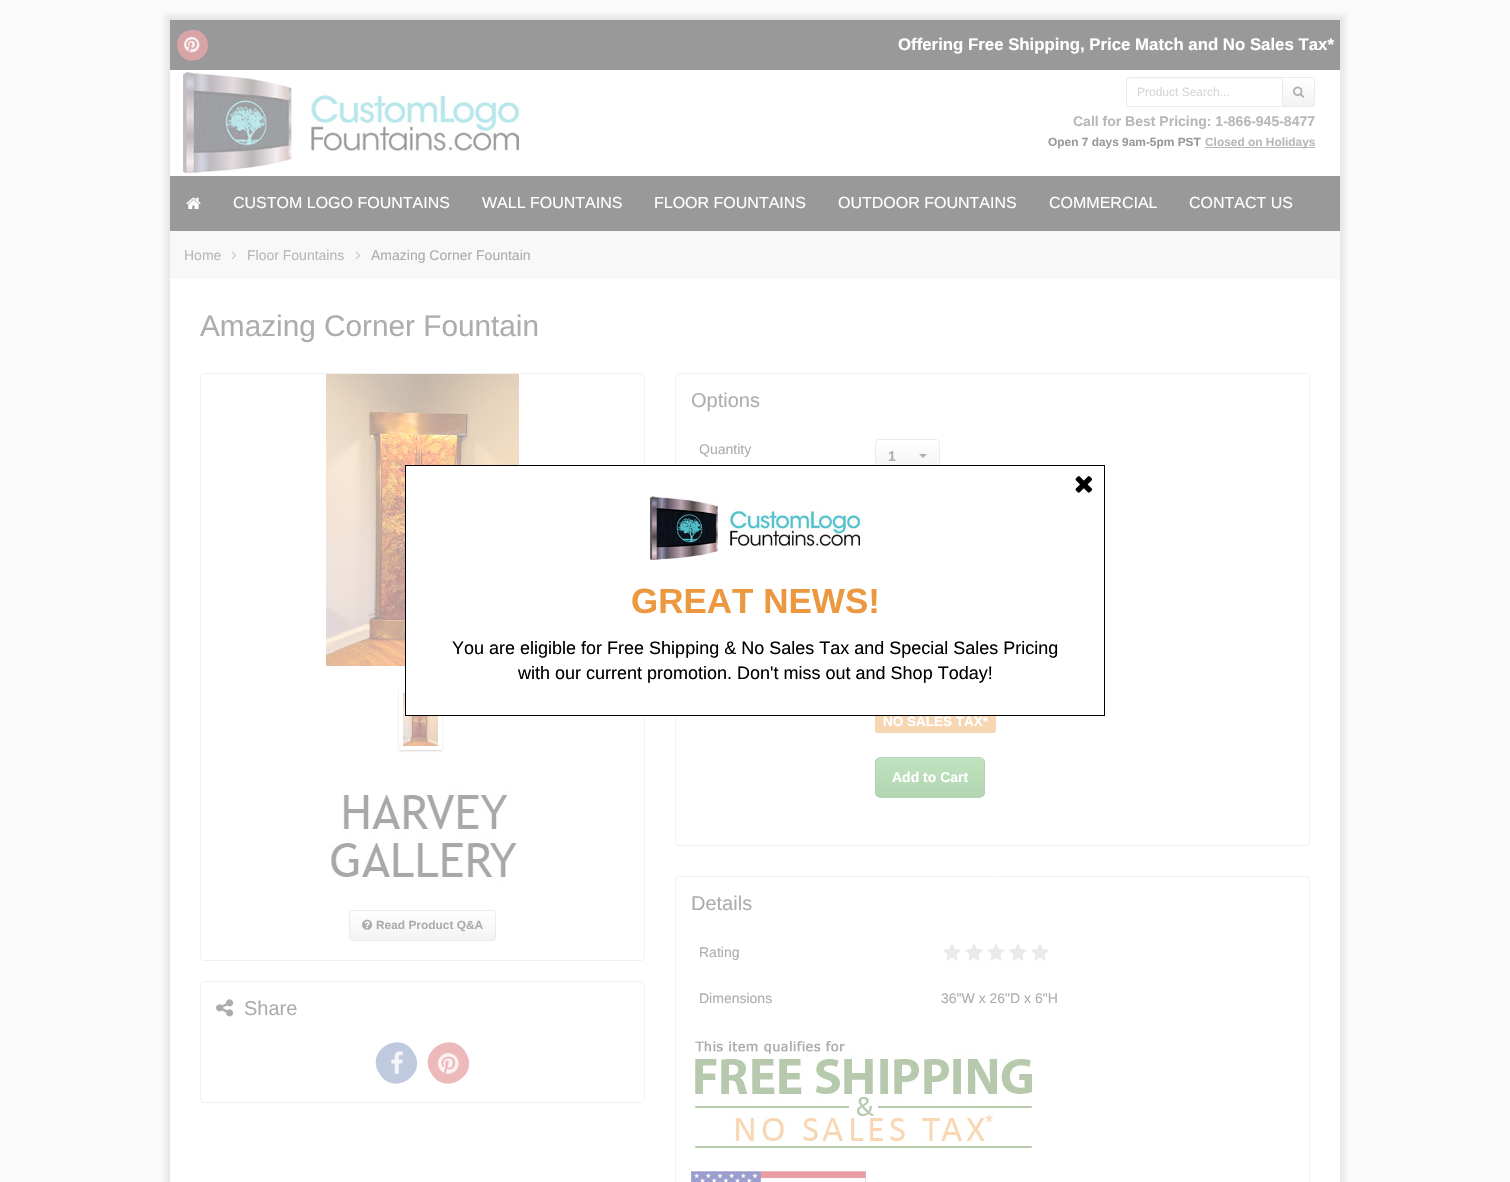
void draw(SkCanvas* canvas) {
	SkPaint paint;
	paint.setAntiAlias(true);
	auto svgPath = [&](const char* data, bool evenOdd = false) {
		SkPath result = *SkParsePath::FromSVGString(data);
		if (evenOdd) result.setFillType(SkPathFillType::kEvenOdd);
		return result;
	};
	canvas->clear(0xfffafafa);
	paint.setColor(0x33999999);
	paint.setMaskFilter(SkMaskFilter::MakeBlur(kNormal_SkBlurStyle, 2.5));
	canvas->drawRect(SkRect::MakeXYWH(165, 15, 1180, 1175), paint);
	paint.setMaskFilter(nullptr);
	paint.setColor(0xff999999);
	canvas->drawRect(SkRect::MakeXYWH(170, 20, 1170, 50), paint);
	paint.setColor(0xffd9a4a7);
	canvas->drawPath(svgPath("M206 37.5C207.5 40 208 43 208 46C207 61.5 186.5 66 179 53C177.5 50 177 47 177 44C178 29 198 24.5 206 37.5Z"), paint);
	canvas->drawImageRect(SkImages::DeferredFromEncodedData(SkData::MakeFromFileName("img1.png")), SkRect::MakeXYWH(184, 36, 16, 17), SkSamplingOptions());
	SkFont f1(fontMgr->matchFamilyStyle("Liberation Sans", SkFontStyle::Bold()), 16.8);
	f1.setSubpixel(true);
	paint.setColor(0xffffffff);
	canvas->drawString("Offering Free Shipping, Price Match and No Sales Tax*", 898, 50, f1, paint);
	canvas->drawRect(SkRect::MakeXYWH(170, 70, 1170, 106), paint);
	canvas->drawImageRect(SkImages::DeferredFromEncodedData(SkData::MakeFromFileName("img2.png")), SkRect::MakeXYWH(180, 72, 342, 102), SkSamplingOptions());
	paint.setColor(0xfff7f7f7);
	canvas->drawPath(svgPath("M1129 79H1282V78H1129C1127 78 1127 80 1127 81C1127 80 1128 79 1129 79Z"), paint);
	paint.setStroke(true);
	paint.setStrokeWidth(1);
	paint.setColor(0xffebebeb);
	canvas->drawPath(svgPath("M1129 77.5H1282.5V106.5H1129C1127.5 106.5 1126.5 105.5 1126.5 104V80C1126.5 78.5 1127.5 77.5 1129 77.5Z"), paint);
	SkFont f2(fontMgr->matchFamilyStyle("Liberation Sans", SkFontStyle::Normal()), 12);
	f2.setSubpixel(true);
	paint.setStroke(false);
	paint.setColor(0xffd6d6d6);
	canvas->drawString("Product Search...", 1137, 96, f2, paint);
	canvas->save();
	canvas->clipPath(svgPath("M1282 77H1312C1313.5 77 1315 78.5 1315 80V104C1315 105.5 1313.5 107 1312 107H1282Z"), true);
	{
		const SkColor colors[] = {0xffffffff, 0xfff3f3f3};
		const float stops[] = {0, 1};
		const SkPoint ends[] = {{1299, 78}, {1299, 106}};
		paint.setShader(SkGradientShader::MakeLinear(ends, colors, stops, 2, SkTileMode::kClamp));
		paint.setAlpha(255);
	}
	canvas->drawRect(SkRect::MakeXYWH(1283, 78, 32, 28), paint);
	canvas->restore();
	paint.setStroke(true);
	paint.setShader(nullptr);
	paint.setColor(0xffebebeb);
	canvas->drawPath(svgPath("M1282.5 77.5H1312C1313.5 77.5 1314.5 78.5 1314.5 80V104C1314.5 105.5 1313.5 106.5 1312 106.5H1282.5Z"), paint);
	canvas->drawImageRect(SkImages::DeferredFromEncodedData(SkData::MakeFromFileName("img3.png")), SkRect::MakeXYWH(1293, 86, 12, 12), SkSamplingOptions());
	SkFont f3(fontMgr->matchFamilyStyle("Liberation Sans", SkFontStyle::Bold()), 14);
	f3.setSubpixel(true);
	paint.setStroke(false);
	paint.setColor(0xffb8b8b8);
	canvas->drawString("Call for Best Pricing: 1-866-945-8477", 1073, 126, f3, paint);
	SkFont f4(fontMgr->matchFamilyStyle("Liberation Sans", SkFontStyle::Bold()), 11.9);
	f4.setSubpixel(true);
	paint.setColor(0xff999999);
	canvas->drawString("Open 7 days 9am-5pm PST", 1048, 146, f4, paint);
	paint.setColor(0xffb8b8b8);
	canvas->drawRect(SkRect::MakeXYWH(1205, 147, 110, 1), paint);
	canvas->drawString("Closed on Holidays", 1205, 146, f4, paint);
	paint.setColor(0xff999999);
	canvas->drawRect(SkRect::MakeXYWH(170, 176, 1170, 55), paint);
	canvas->drawImageRect(SkImages::DeferredFromEncodedData(SkData::MakeFromFileName("img4.png")), SkRect::MakeXYWH(186, 197, 15, 12), SkSamplingOptions());
	SkFont f5(fontMgr->matchFamilyStyle("Liberation Sans", SkFontStyle::Normal()), 16);
	f5.setSubpixel(true);
	paint.setColor(0xffffffff);
	canvas->drawString("CUSTOM LOGO FOUNTAINS", 233, 208, f5, paint);
	canvas->drawString("WALL FOUNTAINS", 482, 208, f5, paint);
	canvas->drawString("FLOOR FOUNTAINS", 654, 208, f5, paint);
	canvas->drawString("OUTDOOR FOUNTAINS", 838, 208, f5, paint);
	canvas->drawString("COMMERCIAL", 1049, 208, f5, paint);
	canvas->drawString("CONTACT US", 1189, 208, f5, paint);
	paint.setColor(0xfff8f8f8);
	canvas->drawRect(SkRect::MakeXYWH(170, 231, 1170, 48), paint);
	SkFont f6(fontMgr->matchFamilyStyle("Liberation Sans", SkFontStyle::Normal()), 14);
	f6.setSubpixel(true);
	paint.setColor(0xffb8b8b8);
	canvas->drawString("Home", 184, 260, f6, paint);
	canvas->drawImageRect(SkImages::DeferredFromEncodedData(SkData::MakeFromFileName("img5.png")), SkRect::MakeXYWH(231, 251, 6, 9), SkSamplingOptions());
	canvas->drawString("Floor Fountains", 247, 260, f6, paint);
	canvas->drawImageRect(SkImages::DeferredFromEncodedData(SkData::MakeFromFileName("img5.png")), SkRect::MakeXYWH(355, 251, 6, 9), SkSamplingOptions());
	paint.setColor(0xffadadad);
	canvas->drawString("Amazing Corner Fountain", 371, 260, f6, paint);
	paint.setColor(0xffffffff);
	canvas->drawRect(SkRect::MakeXYWH(170, 279, 1170, 903), paint);
	SkFont f7(fontMgr->matchFamilyStyle("Liberation Sans", SkFontStyle::Normal()), 29.75);
	f7.setSubpixel(true);
	paint.setColor(0xffadadad);
	canvas->drawString("Amazing Corner Fountain", 200, 336, f7, paint);
	paint.setStroke(true);
	paint.setColor(0xfff1f1f1);
	canvas->drawRoundRect(SkRect::MakeXYWH(200.5, 373.5, 444, 587), 3.5, 3.5, paint);
	canvas->drawImageRect(SkImages::DeferredFromEncodedData(SkData::MakeFromFileName("img6.png")), SkRect::MakeXYWH(326, 374, 193, 292), SkSamplingOptions());
	canvas->save();
	canvas->clipPath(svgPath("M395 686H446V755H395ZM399 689H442V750H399Z", true), true);
	paint.setStroke(false);
	paint.setColor(0x66999999);
	paint.setMaskFilter(SkMaskFilter::MakeBlur(kNormal_SkBlurStyle, 1));
	canvas->drawRect(SkRect::MakeXYWH(399, 690, 43, 61), paint);
	paint.setMaskFilter(nullptr);
	canvas->restore();
	canvas->drawImageRect(SkImages::DeferredFromEncodedData(SkData::MakeFromFileName("img7.png")), SkRect::MakeXYWH(403, 693, 35, 53), SkSamplingOptions());
	canvas->drawImageRect(SkImages::DeferredFromEncodedData(SkData::MakeFromFileName("img8.png")), SkRect::MakeXYWH(330, 788, 192, 96), SkSamplingOptions());
	canvas->save();
	canvas->clipPath(svgPath("M353 910H492C494 910 496 912 496 914V937C496 939 494 941 492 941H353C351 941 349 939 349 937V914C349 912 351 910 353 910Z"), true);
	{
		const SkColor colors[] = {0xffffffff, 0xfff3f3f3};
		const float stops[] = {0, 1};
		const SkPoint ends[] = {{423, 911}, {423, 940}};
		paint.setShader(SkGradientShader::MakeLinear(ends, colors, stops, 2, SkTileMode::kClamp));
		paint.setAlpha(255);
	}
	canvas->drawRect(SkRect::MakeXYWH(349, 911, 147, 29), paint);
	canvas->restore();
	paint.setStroke(true);
	paint.setShader(nullptr);
	paint.setColor(0xffebebeb);
	canvas->drawRoundRect(SkRect::MakeXYWH(349.5, 910.5, 146, 30), 3.5, 3.5, paint);
	canvas->drawImageRect(SkImages::DeferredFromEncodedData(SkData::MakeFromFileName("img9.png")), SkRect::MakeXYWH(362, 919, 11, 11), SkSamplingOptions());
	paint.setStroke(false);
	paint.setColor(0xffadadad);
	canvas->drawString("Read Product Q&A", 376, 929, f4, paint);
	paint.setStroke(true);
	paint.setColor(0xfff1f1f1);
	canvas->drawRoundRect(SkRect::MakeXYWH(200.5, 981.5, 444, 121), 3.5, 3.5, paint);
	canvas->drawImageRect(SkImages::DeferredFromEncodedData(SkData::MakeFromFileName("img10.png")), SkRect::MakeXYWH(216, 999, 18, 18), SkSamplingOptions());
	SkFont f8(fontMgr->matchFamilyStyle("Liberation Sans", SkFontStyle::Normal()), 20);
	f8.setSubpixel(true);
	paint.setStroke(false);
	paint.setColor(0xffadadad);
	canvas->drawString("Share", 244, 1015, f8, paint);
	paint.setColor(0xffc0cade);
	canvas->drawPath(svgPath("M414 1053C428 1076 392 1097 379 1073C365 1050 401 1029 414 1053Z"), paint);
	canvas->drawImageRect(SkImages::DeferredFromEncodedData(SkData::MakeFromFileName("img11.png")), SkRect::MakeXYWH(391, 1051, 12, 23), SkSamplingOptions());
	paint.setColor(0xffedb9bb);
	canvas->drawPath(svgPath("M466 1053C480 1076 444 1097 431 1073C417 1050 453 1029 466 1053Z"), paint);
	canvas->drawImageRect(SkImages::DeferredFromEncodedData(SkData::MakeFromFileName("img12.png")), SkRect::MakeXYWH(438, 1053, 21, 21), SkSamplingOptions());
	paint.setStroke(true);
	paint.setColor(0xfff1f1f1);
	canvas->drawRoundRect(SkRect::MakeXYWH(675.5, 373.5, 634, 472), 3.5, 3.5, paint);
	paint.setStroke(false);
	paint.setColor(0xffadadad);
	canvas->drawString("Options", 691, 407, f8, paint);
	canvas->drawString("Quantity", 699, 454, f6, paint);
	canvas->save();
	canvas->clipPath(svgPath("M879 439H936C938 439 940 441 940 443V469C940 471 938 473 936 473H879C877 473 875 471 875 469V443C875 441 877 439 879 439Z"), true);
	{
		const SkColor colors[] = {0xffffffff, 0xfff3f3f3};
		const float stops[] = {0, 1};
		const SkPoint ends[] = {{908, 440}, {908, 472}};
		paint.setShader(SkGradientShader::MakeLinear(ends, colors, stops, 2, SkTileMode::kClamp));
		paint.setAlpha(255);
	}
	canvas->drawRect(SkRect::MakeXYWH(875, 440, 65, 25), paint);
	canvas->restore();
	paint.setStroke(true);
	paint.setShader(nullptr);
	paint.setColor(0xffebebeb);
	canvas->drawRoundRect(SkRect::MakeXYWH(875.5, 439.5, 64, 33), 3.5, 3.5, paint);
	paint.setStroke(false);
	paint.setColor(0xffadadad);
	canvas->drawString("1", 888, 461, f3, paint);
	canvas->drawPath(svgPath("M919 454H927L923 458Z"), paint);
	paint.setColor(0xfff7d6b3);
	canvas->drawRoundRect(SkRect::MakeXYWH(875, 712, 121, 21), 3, 3, paint);
	SkFont f9(fontMgr->matchFamilyStyle("Liberation Sans", SkFontStyle::Bold()), 13.5);
	f9.setSubpixel(true);
	paint.setColor(0xffffffff);
	canvas->drawString("NO SALES TAX*", 883, 726, f9, paint);
	canvas->save();
	canvas->clipPath(svgPath("M881 757H979C982.5 757 985 759.5 985 763V792C985 795.5 982.5 798 979 798H881C877.5 798 875 795.5 875 792V763C875 759.5 877.5 757 881 757Z"), true);
	{
		const SkColor colors[] = {0xffbee3be, 0xffb3d5b3};
		const float stops[] = {0, 1};
		const SkPoint ends[] = {{930, 758}, {930, 797}};
		paint.setShader(SkGradientShader::MakeLinear(ends, colors, stops, 2, SkTileMode::kClamp));
		paint.setAlpha(255);
	}
	canvas->drawRect(SkRect::MakeXYWH(875, 758, 110, 39), paint);
	canvas->restore();
	paint.setShader(nullptr);
	paint.setColor(0xffc7e7c7);
	canvas->drawPath(svgPath("M881 759H979C982 759 984 761 984 764C984 754 968 758 963 758H897C892 758 876 754 876 764C876 761 878 759 881 759Z"), paint);
	paint.setStroke(true);
	paint.setColor(0xffb2d2b2);
	canvas->drawRoundRect(SkRect::MakeXYWH(875.5, 757.5, 109, 40), 5.5, 5.5, paint);
	paint.setStroke(false);
	paint.setColor(0xffffffff);
	canvas->drawString("Add to Cart", 892, 782, f3, paint);
	paint.setStroke(true);
	paint.setColor(0xfff1f1f1);
	canvas->drawRoundRect(SkRect::MakeXYWH(675.5, 876.5, 634, 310), 3.5, 3.5, paint);
	paint.setStroke(false);
	paint.setColor(0xffadadad);
	canvas->drawString("Details", 691, 910, f8, paint);
	canvas->drawString("Rating", 699, 957, f6, paint);
	canvas->drawImageRect(SkImages::DeferredFromEncodedData(SkData::MakeFromFileName("img13.png")), SkRect::MakeXYWH(943, 943, 18, 18), SkSamplingOptions());
	canvas->drawImageRect(SkImages::DeferredFromEncodedData(SkData::MakeFromFileName("img13.png")), SkRect::MakeXYWH(965, 943, 18, 18), SkSamplingOptions());
	canvas->drawImageRect(SkImages::DeferredFromEncodedData(SkData::MakeFromFileName("img13.png")), SkRect::MakeXYWH(987, 943, 18, 18), SkSamplingOptions());
	canvas->drawImageRect(SkImages::DeferredFromEncodedData(SkData::MakeFromFileName("img13.png")), SkRect::MakeXYWH(1009, 943, 18, 18), SkSamplingOptions());
	canvas->drawImageRect(SkImages::DeferredFromEncodedData(SkData::MakeFromFileName("img13.png")), SkRect::MakeXYWH(1031, 943, 18, 18), SkSamplingOptions());
	canvas->drawString("Dimensions", 699, 1003, f6, paint);
	canvas->drawString("36\"W x 26\"D x 6\"H", 941, 1003, f6, paint);
	canvas->drawImageRect(SkImages::DeferredFromEncodedData(SkData::MakeFromFileName("img14.png")), SkRect::MakeXYWH(691, 1037, 344, 111), SkSamplingOptions());
	canvas->drawImageRect(SkImages::DeferredFromEncodedData(SkData::MakeFromFileName("img15.png")), SkRect::MakeXYWH(691, 1171, 175, 11), SkSamplingOptions());
	paint.setColor(0xffffffff);
	canvas->drawRect(SkRect::MakeXYWH(406, 466, 590, 249), paint);
	paint.setStroke(true);
	paint.setColor(0xff000000);
	canvas->drawRect(SkRect::MakeXYWH(405.5, 465.5, 699, 250), paint);
	canvas->drawImageRect(SkImages::DeferredFromEncodedData(SkData::MakeFromFileName("img16.png")), SkRect::MakeXYWH(1075, 476, 18, 17), SkSamplingOptions());
	canvas->drawImageRect(SkImages::DeferredFromEncodedData(SkData::MakeFromFileName("img17.png")), SkRect::MakeXYWH(648, 496, 214, 65), SkSamplingOptions());
	SkFont f10(fontMgr->matchFamilyStyle("Liberation Sans", SkFontStyle::Bold()), 35);
	f10.setSubpixel(true);
	paint.setStroke(false);
	paint.setColor(0xffec9840);
	canvas->drawString("GREAT NEWS!", 631, 613, f10, paint);
	SkFont f11(fontMgr->matchFamilyStyle("Liberation Sans", SkFontStyle::Normal()), 18);
	f11.setSubpixel(true);
	paint.setColor(0xff000000);
	canvas->drawString("You are eligible for Free Shipping & No Sales Tax and Special Sales Pricing", 452, 654, f11, paint);
	canvas->drawString("with our current promotion. Don't miss out and Shop Today!", 518, 679, f11, paint);
}
